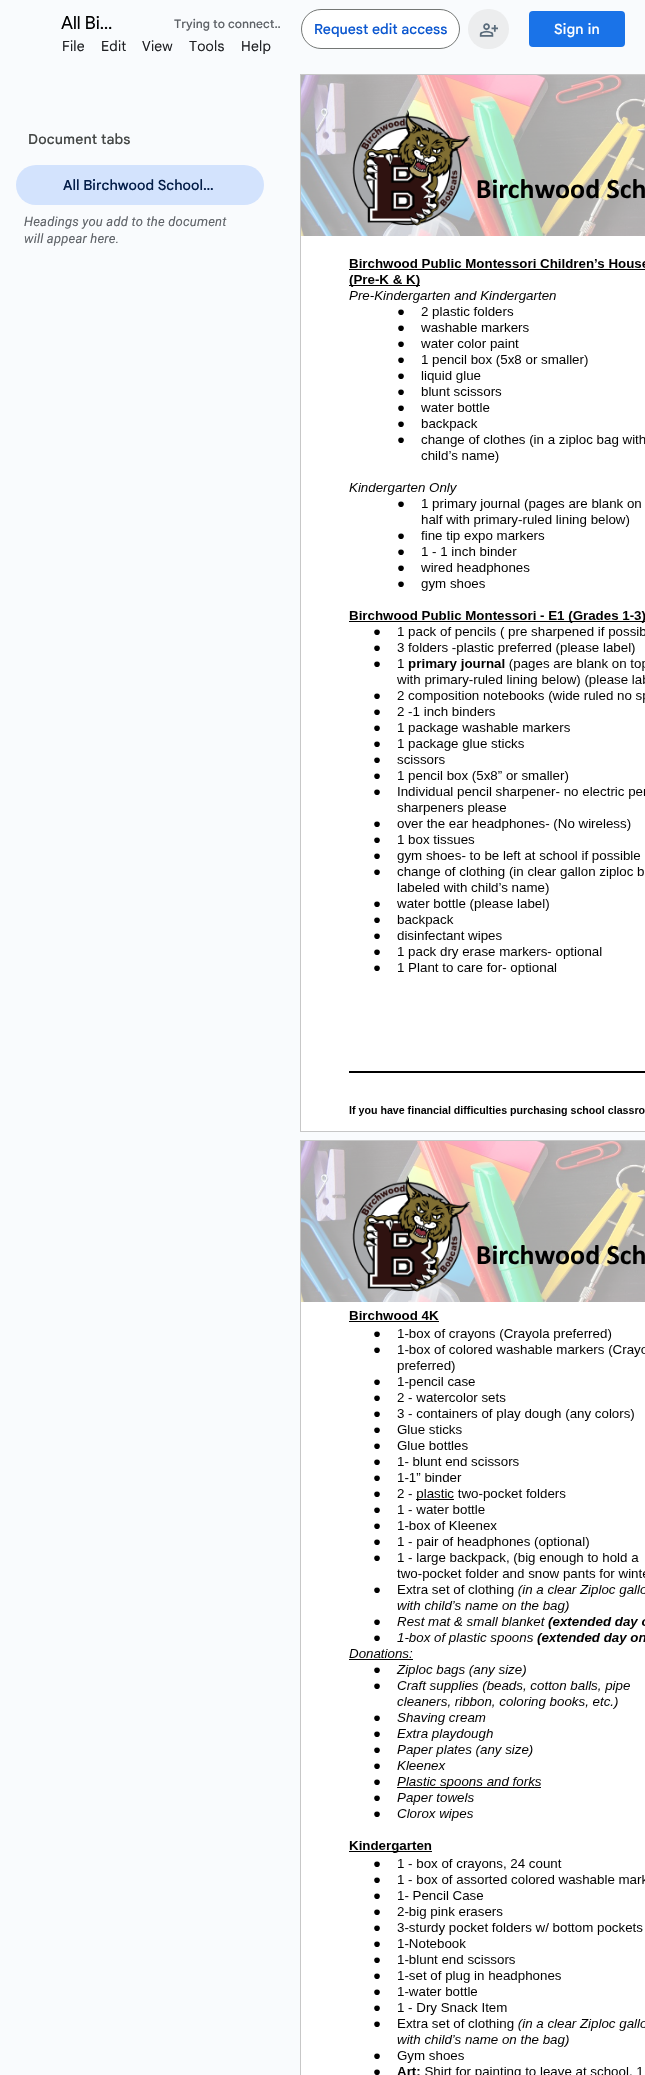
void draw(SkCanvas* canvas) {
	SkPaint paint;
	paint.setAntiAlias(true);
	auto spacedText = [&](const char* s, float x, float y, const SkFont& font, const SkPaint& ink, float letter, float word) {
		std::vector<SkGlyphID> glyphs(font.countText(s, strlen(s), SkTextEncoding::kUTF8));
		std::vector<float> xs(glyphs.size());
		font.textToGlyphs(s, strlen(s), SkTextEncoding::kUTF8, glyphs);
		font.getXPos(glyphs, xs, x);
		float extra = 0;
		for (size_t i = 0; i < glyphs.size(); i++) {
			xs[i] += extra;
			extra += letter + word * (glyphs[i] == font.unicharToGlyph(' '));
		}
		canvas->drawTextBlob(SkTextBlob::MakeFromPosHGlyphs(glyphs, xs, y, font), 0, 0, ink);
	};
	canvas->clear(0xfff9fbfd);
	SkFont f1(fontMgr->matchFamilyStyle("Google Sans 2", SkFontStyle::Normal()), 18);
	f1.setSubpixel(true);
	paint.setColor(0xff000000);
	canvas->drawString("All Bi…", 61, 29, f1, paint);
	SkFont f2(fontMgr->matchFamilyStyle("Google Sans", SkFontStyle(500, SkFontStyle::kNormal_Width, SkFontStyle::kUpright_Slant)), 12);
	f2.setSubpixel(true);
	paint.setColor(0xff5f6368);
	canvas->drawString("Trying to connect…", 174, 28, f2, paint);
	paint.setColor(0xfff9fbfd);
	canvas->drawRect(SkRect::MakeXYWH(281, 26, 2, 2), paint);
	paint.setColor(0xffffffff);
	canvas->drawRoundRect(SkRect::MakeXYWH(301.5, 9.5, 158, 39), 19.5, 19.5, paint);
	paint.setStroke(true);
	paint.setStrokeWidth(1);
	paint.setColor(0xff747775);
	canvas->drawRoundRect(SkRect::MakeXYWH(301.5, 9.5, 158, 39), 19.5, 19.5, paint);
	SkFont f3(fontMgr->matchFamilyStyle("Google Sans", SkFontStyle(500, SkFontStyle::kNormal_Width, SkFontStyle::kUpright_Slant)), 14);
	f3.setSubpixel(true);
	paint.setStroke(false);
	paint.setColor(0xff0b57d0);
	canvas->drawString("Request edit access", 314, 34, f3, paint);
	paint.setColor(0xffecedee);
	canvas->drawRoundRect(SkRect::MakeXYWH(468, 9, 41, 40), 20, 20, paint);
	canvas->drawImageRect(SkImages::DeferredFromEncodedData(SkData::MakeFromFileName("img1.png")), SkRect::MakeXYWH(479, 23, 19, 14), SkSamplingOptions());
	paint.setColor(0xff1a73e8);
	canvas->drawRoundRect(SkRect::MakeXYWH(529, 11, 96, 36), 4, 4, paint);
	paint.setColor(0xffffffff);
	spacedText("Sign in", 554, 34, f3, paint, 0.25, 0);
	SkFont f4(fontMgr->matchFamilyStyle("Google Sans", SkFontStyle::Normal()), 14);
	f4.setSubpixel(true);
	paint.setColor(0xff202124);
	spacedText("File", 62, 51, f4, paint, 0.2, 0);
	spacedText("Edit", 101, 51, f4, paint, 0.2, 0);
	spacedText("View", 142, 51, f4, paint, 0.2, 0);
	spacedText("Tools", 189, 51, f4, paint, 0.2, 0);
	spacedText("Help", 241, 51, f4, paint, 0.2, 0);
	paint.setColor(0xff444746);
	spacedText("Document tabs", 28, 144, f3, paint, 0.1, 0);
	paint.setColor(0xffd3e3fd);
	canvas->drawRoundRect(SkRect::MakeXYWH(16, 165, 248, 40), 20, 20, paint);
	paint.setColor(0xff041e49);
	canvas->drawString("All Birchwood School…", 63, 190, f3, paint);
	SkFont f5(fontMgr->matchFamilyStyle("Roboto", SkFontStyle::Italic()), 13);
	f5.setSubpixel(true);
	paint.setColor(0xff5f6368);
	spacedText("Headings you add to the document", 24, 226, f5, paint, 0.2, 0);
	spacedText("will appear here.", 24, 243, f5, paint, 0.2, 0);
	paint.setStroke(true);
	paint.setColor(0xffc7c7c7);
	canvas->drawRect(SkRect::MakeXYWH(300.5, 74.5, 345, 1057), paint);
	canvas->drawImageRect(SkImages::DeferredFromEncodedData(SkData::MakeFromFileName("img2.png")), SkRect::MakeXYWH(301, 75, 344, 1056), SkSamplingOptions());
	canvas->drawRect(SkRect::MakeXYWH(300.5, 1140.5, 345, 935), paint);
	canvas->drawImageRect(SkImages::DeferredFromEncodedData(SkData::MakeFromFileName("img3.png")), SkRect::MakeXYWH(301, 1141, 344, 934), SkSamplingOptions());
}
